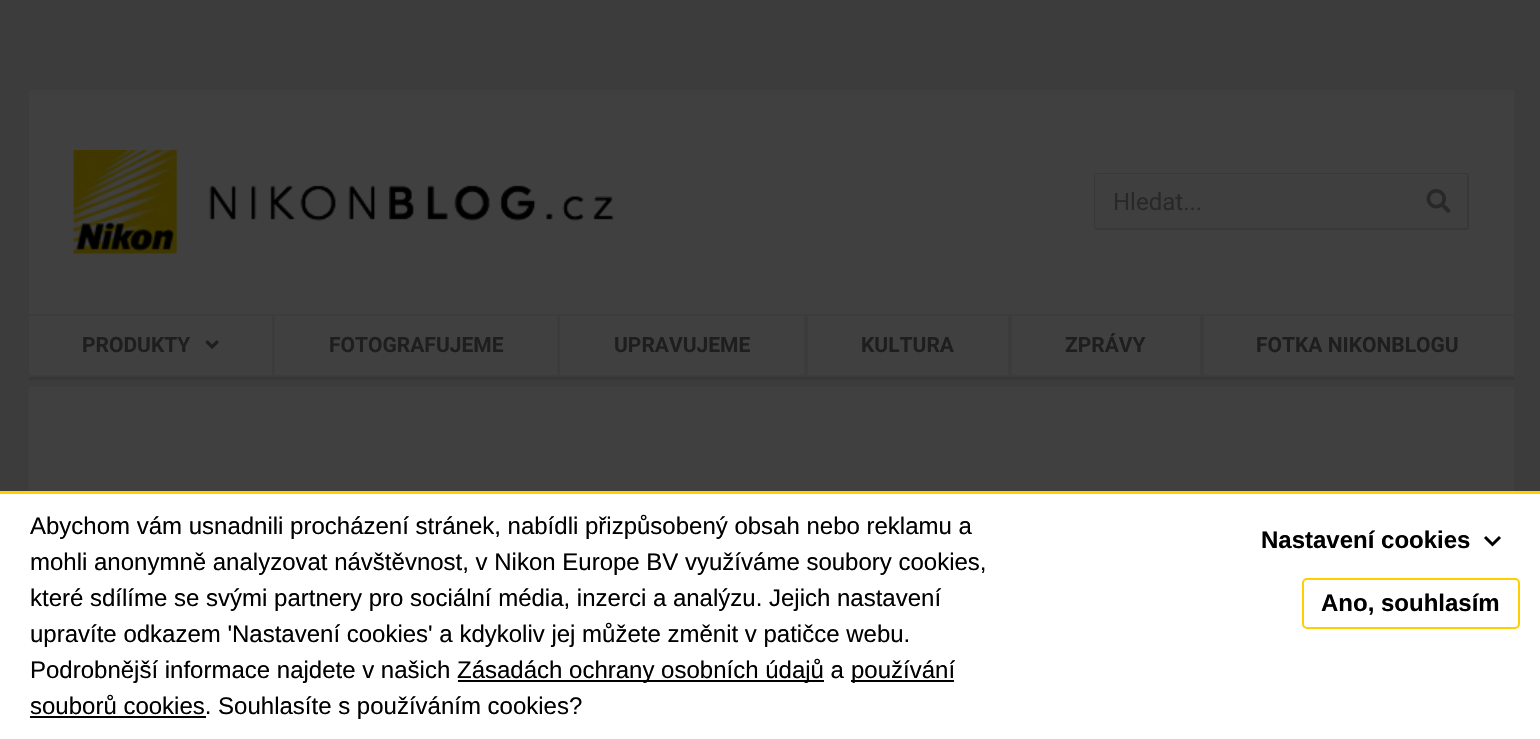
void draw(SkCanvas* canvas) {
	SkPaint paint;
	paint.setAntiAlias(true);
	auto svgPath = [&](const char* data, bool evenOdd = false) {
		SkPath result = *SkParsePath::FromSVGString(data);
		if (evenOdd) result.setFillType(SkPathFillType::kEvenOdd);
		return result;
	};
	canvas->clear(0xff3c3c3c);
	paint.setColor(0xff404040);
	canvas->drawRect(SkRect::MakeXYWH(29, 90, 1485, 224), paint);
	canvas->drawImageRect(SkImages::DeferredFromEncodedData(SkData::MakeFromFileName("img1.png")), SkRect::MakeXYWH(29, 90, 1484, 7), SkSamplingOptions());
	canvas->drawImageRect(SkImages::DeferredFromEncodedData(SkData::MakeFromFileName("img2.png")), SkRect::MakeXYWH(73, 150, 541, 104), SkSamplingOptions());
	paint.setStroke(true);
	paint.setStrokeWidth(2);
	paint.setColor(0xff393838);
	canvas->drawRoundRect(SkRect::MakeXYWH(1095, 174, 373, 55), 2, 2, paint);
	paint.setStroke(false);
	paint.setColor(0xff3f3f3f);
	canvas->drawRect(SkRect::MakeXYWH(1095, 174, 372, 54), paint);
	SkFont f1(fontMgr->matchFamilyStyle("Roboto", SkFontStyle::Normal()), 24);
	f1.setSubpixel(true);
	paint.setColor(0xff282828);
	canvas->drawString("Hledat...", 1113, 210, f1, paint);
	canvas->drawImageRect(SkImages::DeferredFromEncodedData(SkData::MakeFromFileName("img3.png")), SkRect::MakeXYWH(1426, 189, 25, 24), SkSamplingOptions());
	paint.setColor(0xff404040);
	canvas->drawRect(SkRect::MakeXYWH(29, 316, 1485, 59), paint);
	paint.setColor(0xff3c3c3c);
	canvas->drawRect(SkRect::MakeXYWH(272, 314, 3, 63), paint);
	SkFont f2(fontMgr->matchFamilyStyle("Roboto", SkFontStyle::Bold()), 21);
	f2.setSubpixel(true);
	paint.setColor(0xff1e1e1e);
	canvas->drawString("PRODUKTY", 82, 352, f2, paint);
	canvas->drawImageRect(SkImages::DeferredFromEncodedData(SkData::MakeFromFileName("img4.png")), SkRect::MakeXYWH(205, 340, 14, 9), SkSamplingOptions());
	paint.setColor(0xff3c3c3c);
	canvas->drawRect(SkRect::MakeXYWH(557, 314, 3, 63), paint);
	paint.setColor(0xff1e1e1e);
	canvas->drawString("FOTOGRAFUJEME", 329, 352, f2, paint);
	paint.setColor(0xff3c3c3c);
	canvas->drawRect(SkRect::MakeXYWH(804, 314, 4, 63), paint);
	paint.setColor(0xff1e1e1e);
	canvas->drawString("UPRAVUJEME", 614, 352, f2, paint);
	paint.setColor(0xff3c3c3c);
	canvas->drawRect(SkRect::MakeXYWH(1008, 314, 4, 63), paint);
	paint.setColor(0xff1e1e1e);
	canvas->drawString("KULTURA", 861, 352, f2, paint);
	paint.setColor(0xff3c3c3c);
	canvas->drawRect(SkRect::MakeXYWH(1200, 314, 4, 63), paint);
	paint.setColor(0xff1e1e1e);
	canvas->drawString("ZPRÁVY", 1065, 352, f2, paint);
	canvas->drawString("FOTKA NIKONBLOGU", 1256, 352, f2, paint);
	paint.setColor(0xff373737);
	canvas->drawRect(SkRect::MakeXYWH(29, 377, 1485, 3), paint);
	paint.setColor(0xff404040);
	canvas->drawRect(SkRect::MakeXYWH(1301, 387, 213, 104), paint);
	canvas->drawImageRect(SkImages::DeferredFromEncodedData(SkData::MakeFromFileName("img5.png")), SkRect::MakeXYWH(28, 387, 1273, 104), SkSamplingOptions());
	paint.setColor(0xffffffff);
	canvas->drawRect(SkRect::MakeXYWH(0, 494, 1540, 245), paint);
	paint.setColor(0xfffed000);
	canvas->drawRect(SkRect::MakeXYWH(0, 491, 1540, 3), paint);
	SkFont f3(fontMgr->matchFamilyStyle("Liberation Sans", SkFontStyle::Normal()), 24);
	f3.setSubpixel(true);
	paint.setColor(0xff000000);
	canvas->drawString("Abychom vám usnadnili procházení stránek, nabídli přizpůsobený obsah nebo reklamu a", 30, 534, f3, paint);
	canvas->drawString("mohli anonymně analyzovat návštěvnost, v Nikon Europe BV využíváme soubory cookies,", 30, 570, f3, paint);
	canvas->drawString("které sdílíme se svými partnery pro sociální média, inzerci a analýzu. Jejich nastavení", 30, 606, f3, paint);
	canvas->drawString("upravíte odkazem 'Nastavení cookies' a kdykoliv jej můžete změnit v patičce webu.", 30, 642, f3, paint);
	canvas->drawString("Podrobnější informace najdete v našich", 30, 678, f3, paint);
	canvas->drawRect(SkRect::MakeXYWH(458, 680, 366, 2), paint);
	canvas->drawString("Zásadách ochrany osobních údajů a", 457, 678, f3, paint);
	canvas->drawRect(SkRect::MakeXYWH(851, 680, 103, 2), paint);
	canvas->drawString("používání", 851, 678, f3, paint);
	canvas->drawRect(SkRect::MakeXYWH(30, 716, 176, 2), paint);
	canvas->drawString("souborů cookies. Souhlasíte s používáním cookies?", 30, 714, f3, paint);
	SkFont f4(fontMgr->matchFamilyStyle("Liberation Sans", SkFontStyle::Bold()), 24);
	f4.setSubpixel(true);
	canvas->drawString("Nastavení cookies", 1261, 548, f4, paint);
	paint.setStroke(true);
	paint.setStrokeWidth(3);
	canvas->drawPath(svgPath("M1485 537L1492.5 544.5L1500 537"), paint);
	paint.setStrokeWidth(2);
	paint.setColor(0xfffed000);
	canvas->drawRoundRect(SkRect::MakeXYWH(1303, 579, 216, 49), 4, 4, paint);
	paint.setStroke(false);
	paint.setColor(0xff000000);
	canvas->drawString("Ano, souhlasím", 1321, 611, f4, paint);
}
